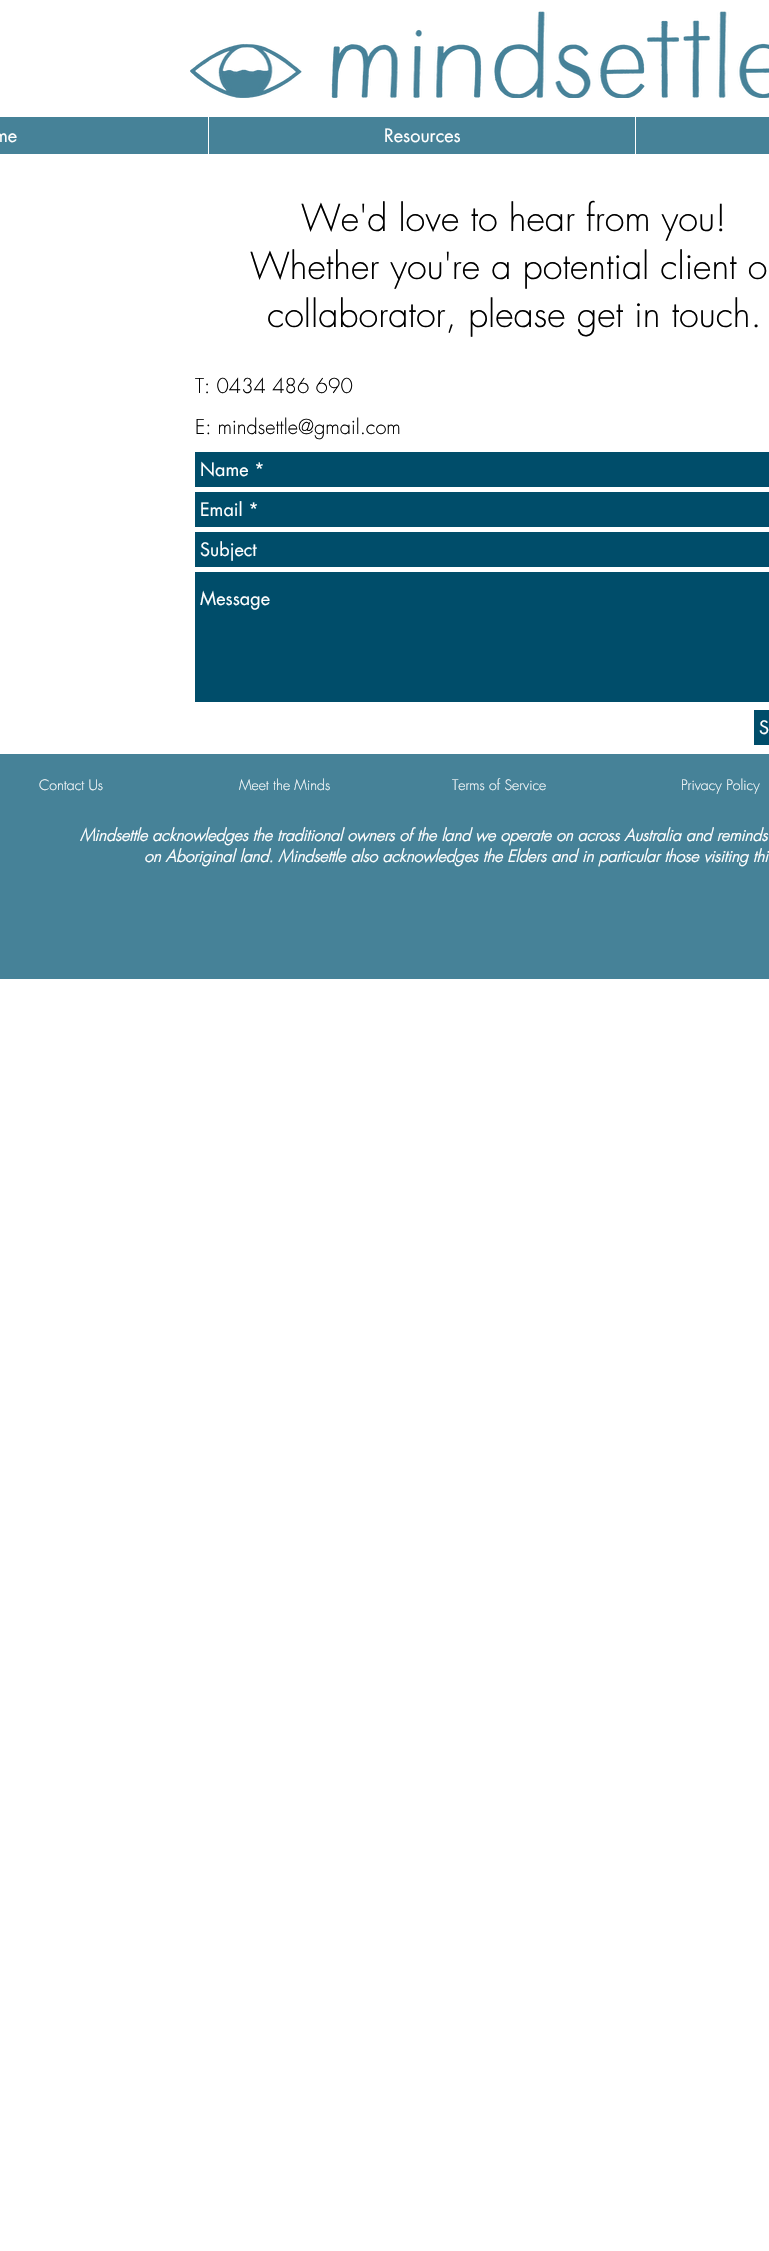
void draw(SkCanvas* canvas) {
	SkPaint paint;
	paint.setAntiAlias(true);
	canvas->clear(0xffffffff);
	canvas->drawImageRect(SkImages::DeferredFromEncodedData(SkData::MakeFromFileName("img1.png")), SkRect::MakeXYWH(190, 11, 579, 87), SkSamplingOptions());
	paint.setColor(0xff468298);
	canvas->drawRect(SkRect::MakeXYWH(0, 117, 769, 37), paint);
	SkFont f1(fontMgr->matchFamilyStyle("futura", SkFontStyle::Normal()), 18);
	f1.setSubpixel(true);
	paint.setColor(0xffffffff);
	canvas->drawString("me", -6, 142, f1, paint);
	canvas->drawRect(SkRect::MakeXYWH(208, 117, 1, 37), paint);
	canvas->drawString("Resources", 384, 142, f1, paint);
	canvas->drawRect(SkRect::MakeXYWH(635, 117, 1, 37), paint);
	SkFont f2(fontMgr->matchFamilyStyle("futura", SkFontStyle(300, SkFontStyle::kNormal_Width, SkFontStyle::kUpright_Slant)), 36);
	f2.setSubpixel(true);
	paint.setColor(0xff000000);
	canvas->drawString("We'd love to hear from you!", 301, 231, f2, paint);
	canvas->drawString("Whether you're a potential client o", 250, 279, f2, paint);
	canvas->drawString("collaborator, please get in touch.", 267, 327, f2, paint);
	SkFont f3(fontMgr->matchFamilyStyle("futura", SkFontStyle(300, SkFontStyle::kNormal_Width, SkFontStyle::kUpright_Slant)), 20);
	f3.setSubpixel(true);
	canvas->drawString("T: 0434 486 690", 195, 393, f3, paint);
	canvas->drawString("E: mindsettle@gmail.com", 195, 434, f3, paint);
	paint.setColor(0xff004d6a);
	canvas->drawRect(SkRect::MakeXYWH(195, 452, 574, 35), paint);
	paint.setColor(0xffffffff);
	canvas->drawString("Name *", 200, 476, f1, paint);
	paint.setColor(0xff004d6a);
	canvas->drawRect(SkRect::MakeXYWH(195, 492, 574, 35), paint);
	paint.setColor(0xffffffff);
	canvas->drawString("Email *", 200, 516, f1, paint);
	paint.setColor(0xff004d6a);
	canvas->drawRect(SkRect::MakeXYWH(195, 532, 574, 35), paint);
	paint.setColor(0xffffffff);
	canvas->drawString("Subject", 200, 556, f1, paint);
	paint.setColor(0xff004d6a);
	canvas->drawRect(SkRect::MakeXYWH(195, 572, 574, 130), paint);
	paint.setColor(0xffffffff);
	canvas->drawString("Message", 200, 605, f1, paint);
	paint.setColor(0xff004d6a);
	canvas->drawRect(SkRect::MakeXYWH(754, 710, 15, 35), paint);
	paint.setColor(0xffffffff);
	canvas->drawString("S", 759, 734, f1, paint);
	paint.setColor(0xff468298);
	canvas->drawRect(SkRect::MakeXYWH(0, 754, 769, 225), paint);
	SkFont f4(fontMgr->matchFamilyStyle("futura", SkFontStyle(300, SkFontStyle::kNormal_Width, SkFontStyle::kUpright_Slant)), 14);
	f4.setSubpixel(true);
	paint.setColor(0xffffffff);
	canvas->drawString("Contact Us", 39, 790, f4, paint);
	canvas->drawString("Meet the Minds", 239, 790, f4, paint);
	canvas->drawString("Terms of Service", 452, 790, f4, paint);
	canvas->drawString("Privacy Policy", 681, 790, f4, paint);
	SkFont f5(fontMgr->matchFamilyStyle("futura", SkFontStyle::BoldItalic()), 16);
	f5.setSubpixel(true);
	canvas->drawString("Mindsettle acknowledges the traditional owners of the land we operate on across Australia and reminds", 80, 841, f5, paint);
	canvas->drawString("on Aboriginal land. Mindsettle also acknowledges the Elders and in particular those visiting thi", 144, 862, f5, paint);
}
